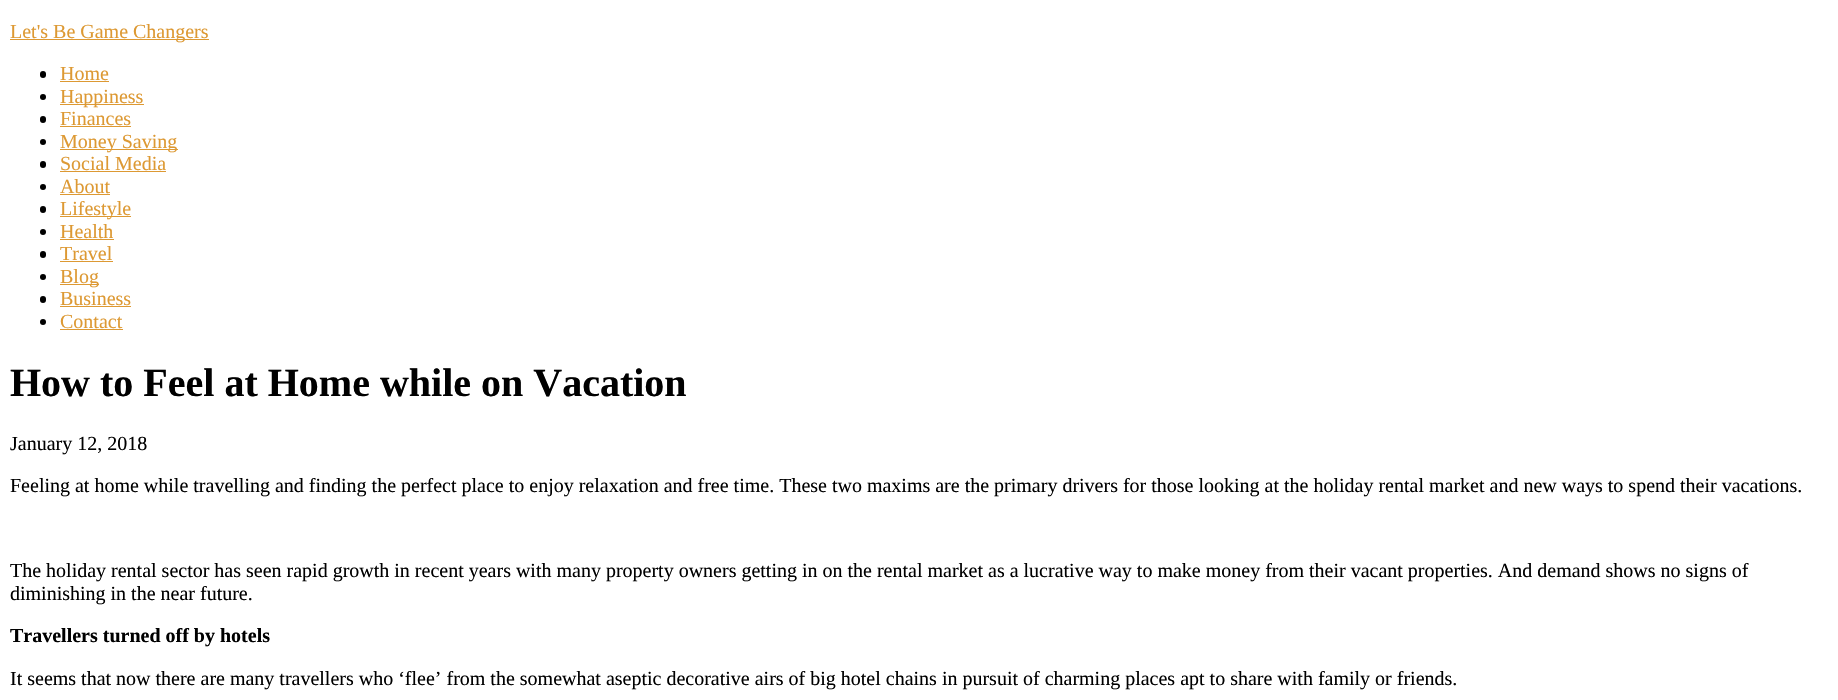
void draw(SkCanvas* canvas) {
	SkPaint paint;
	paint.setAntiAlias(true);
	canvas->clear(0xffffffff);
	paint.setColor(0xffdd9933);
	canvas->drawRect(SkRect::MakeXYWH(10, 39, 199, 1), paint);
	SkFont f1(fontMgr->matchFamilyStyle("Liberation Serif", SkFontStyle::Normal()), 20);
	f1.setSubpixel(true);
	canvas->drawString("Let's Be Game Changers", 10, 38, f1, paint);
	paint.setColor(0xff000000);
	canvas->drawRoundRect(SkRect::MakeXYWH(40, 71, 6, 7), 3, 3, paint);
	paint.setColor(0xffdd9933);
	canvas->drawString("Home", 60, 80, f1, paint);
	canvas->drawRect(SkRect::MakeXYWH(60, 81, 49, 1), paint);
	paint.setColor(0xff000000);
	canvas->drawCircle(43, 97, 3, paint);
	paint.setColor(0xffdd9933);
	canvas->drawRect(SkRect::MakeXYWH(60, 104, 84, 1), paint);
	canvas->drawString("Happiness", 60, 103, f1, paint);
	paint.setColor(0xff000000);
	canvas->drawRoundRect(SkRect::MakeXYWH(40, 116, 6, 7), 3, 3, paint);
	paint.setColor(0xffdd9933);
	canvas->drawString("Finances", 60, 125, f1, paint);
	canvas->drawRect(SkRect::MakeXYWH(60, 126, 71, 1), paint);
	paint.setColor(0xff000000);
	canvas->drawCircle(43, 142, 3, paint);
	paint.setColor(0xffdd9933);
	canvas->drawRect(SkRect::MakeXYWH(60, 149, 118, 1), paint);
	canvas->drawString("Money Saving", 60, 148, f1, paint);
	paint.setColor(0xff000000);
	canvas->drawRoundRect(SkRect::MakeXYWH(40, 161, 6, 7), 3, 3, paint);
	paint.setColor(0xffdd9933);
	canvas->drawString("Social Media", 60, 170, f1, paint);
	canvas->drawRect(SkRect::MakeXYWH(60, 171, 106, 1), paint);
	paint.setColor(0xff000000);
	canvas->drawCircle(43, 187, 3, paint);
	paint.setColor(0xffdd9933);
	canvas->drawString("About", 60, 193, f1, paint);
	canvas->drawRect(SkRect::MakeXYWH(60, 194, 50, 1), paint);
	paint.setColor(0xff000000);
	canvas->drawRoundRect(SkRect::MakeXYWH(40, 206, 6, 7), 3, 3, paint);
	paint.setColor(0xffdd9933);
	canvas->drawRect(SkRect::MakeXYWH(60, 216, 71, 1), paint);
	canvas->drawString("Lifestyle", 60, 215, f1, paint);
	paint.setColor(0xff000000);
	canvas->drawCircle(43, 232, 3, paint);
	paint.setColor(0xffdd9933);
	canvas->drawString("Health", 60, 238, f1, paint);
	canvas->drawRect(SkRect::MakeXYWH(60, 239, 54, 1), paint);
	paint.setColor(0xff000000);
	canvas->drawRoundRect(SkRect::MakeXYWH(40, 251, 6, 7), 3, 3, paint);
	paint.setColor(0xffdd9933);
	canvas->drawString("Travel", 60, 260, f1, paint);
	canvas->drawRect(SkRect::MakeXYWH(60, 261, 53, 1), paint);
	paint.setColor(0xff000000);
	canvas->drawCircle(43, 277, 3, paint);
	paint.setColor(0xffdd9933);
	canvas->drawRect(SkRect::MakeXYWH(60, 284, 39, 1), paint);
	canvas->drawString("Blog", 60, 283, f1, paint);
	paint.setColor(0xff000000);
	canvas->drawRoundRect(SkRect::MakeXYWH(40, 296, 6, 7), 3, 3, paint);
	paint.setColor(0xffdd9933);
	canvas->drawString("Business", 60, 305, f1, paint);
	canvas->drawRect(SkRect::MakeXYWH(60, 306, 71, 1), paint);
	paint.setColor(0xff000000);
	canvas->drawCircle(43, 322, 3, paint);
	paint.setColor(0xffdd9933);
	canvas->drawString("Contact", 60, 328, f1, paint);
	canvas->drawRect(SkRect::MakeXYWH(60, 329, 63, 1), paint);
	SkFont f2(fontMgr->matchFamilyStyle("Liberation Serif", SkFontStyle::Bold()), 40);
	f2.setSubpixel(true);
	paint.setColor(0xff000000);
	canvas->drawString("How to Feel at Home while on Vacation", 10, 396, f2, paint);
	canvas->drawString("January 12, 2018", 10, 450, f1, paint);
	canvas->drawString("Feeling at home while travelling and finding the perfect place to enjoy relaxation and free time. These two maxims are the primary drivers for those looking at the holiday rental market and new ways to spend their vacations.", 10, 492, f1, paint);
	canvas->drawString("The holiday rental sector has seen rapid growth in recent years with many property owners getting in on the rental market as a lucrative way to make money from their vacant properties. And demand shows no signs of", 10, 577, f1, paint);
	canvas->drawString("diminishing in the near future.", 10, 600, f1, paint);
	SkFont f3(fontMgr->matchFamilyStyle("Liberation Serif", SkFontStyle::Bold()), 20);
	f3.setSubpixel(true);
	canvas->drawString("Travellers turned off by hotels", 10, 642, f3, paint);
	canvas->drawString("It seems that now there are many travellers who ‘flee’ from the somewhat aseptic decorative airs of big hotel chains in pursuit of charming places apt to share with family or friends.", 10, 685, f1, paint);
}
